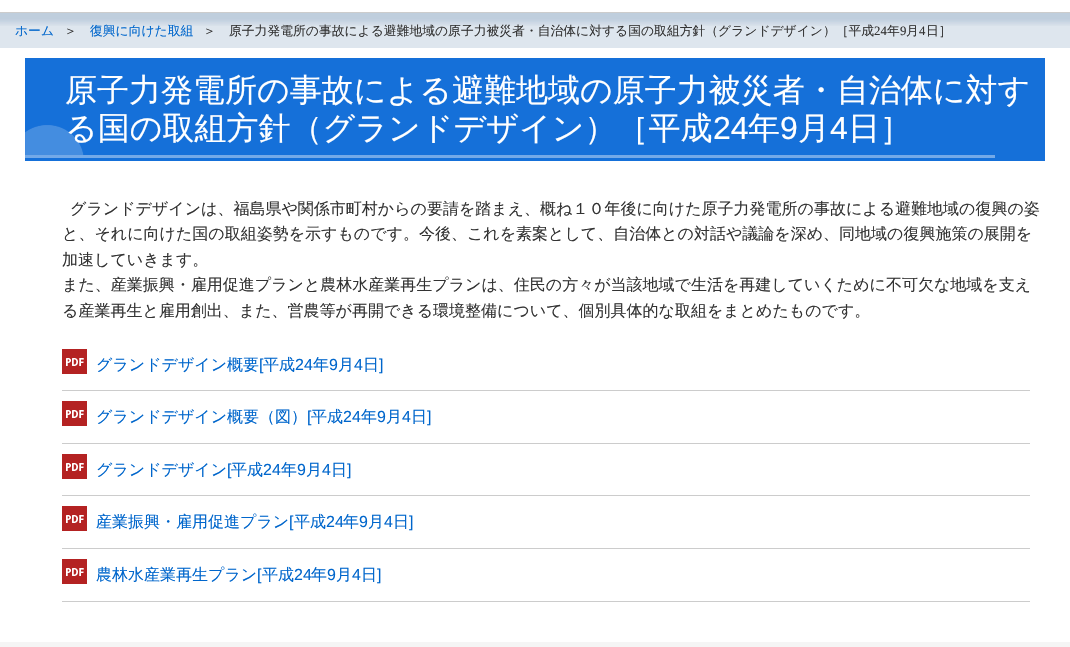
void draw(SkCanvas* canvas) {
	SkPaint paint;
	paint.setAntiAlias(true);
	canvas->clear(0xffffffff);
	paint.setColor(0xffcccccc);
	canvas->drawRect(SkRect::MakeXYWH(0, 12, 1070, 1), paint);
	paint.setColor(0xffdee6ee);
	canvas->drawRect(SkRect::MakeXYWH(0, 13, 1070, 35), paint);
	canvas->drawImageRect(SkImages::DeferredFromEncodedData(SkData::MakeFromFileName("img1.png")), SkRect::MakeXYWH(0, 13, 1070, 13), SkSamplingOptions());
	SkFont f1(fontMgr->matchFamilyStyle("WenQuanYi Zen Hei", SkFontStyle(500, SkFontStyle::kNormal_Width, SkFontStyle::kUpright_Slant)), 12.8);
	f1.setSubpixel(true);
	paint.setColor(0xff0066cc);
	canvas->drawString("ホーム", 15, 35, f1, paint);
	paint.setColor(0xff333333);
	canvas->drawString("＞", 64, 35, f1, paint);
	paint.setColor(0xff0066cc);
	canvas->drawString("復興に向けた取組", 90, 35, f1, paint);
	paint.setColor(0xff333333);
	canvas->drawString("＞", 203, 35, f1, paint);
	canvas->drawString("原子力発電所の事故による避難地域の原子力被災者・自治体に対する国の取組方針（グランドデザイン）［平成", 229, 35, f1, paint);
	SkFont f2(fontMgr->matchFamilyStyle("Liberation Serif", SkFontStyle::Normal()), 12.8);
	f2.setSubpixel(true);
	canvas->drawString("24", 874, 35, f2, paint);
	canvas->drawString("年", 887, 35, f1, paint);
	canvas->drawString("9", 900, 35, f2, paint);
	canvas->drawString("月", 906, 35, f1, paint);
	canvas->drawString("4", 919, 35, f2, paint);
	canvas->drawString("日］", 926, 35, f1, paint);
	paint.setColor(0xff1570d9);
	canvas->drawRect(SkRect::MakeXYWH(25, 58, 1020, 103), paint);
	canvas->drawImageRect(SkImages::DeferredFromEncodedData(SkData::MakeFromFileName("img2.png")), SkRect::MakeXYWH(25, 125, 59, 30), SkSamplingOptions());
	SkFont f3(fontMgr->matchFamilyStyle("WenQuanYi Zen Hei", SkFontStyle(500, SkFontStyle::kNormal_Width, SkFontStyle::kUpright_Slant)), 32);
	f3.setSubpixel(true);
	paint.setColor(0xffffffff);
	canvas->drawString("原子力発電所の事故による避難地域の原子力被災者・自治体に対す", 65, 101, f3, paint);
	canvas->drawString("る国の取組方針（グランドデザイン）［平成", 65, 139, f3, paint);
	SkFont f4(fontMgr->matchFamilyStyle("Liberation Sans", SkFontStyle::Normal()), 32);
	f4.setSubpixel(true);
	canvas->drawString("24", 713, 139, f4, paint);
	canvas->drawString("年", 748, 139, f3, paint);
	canvas->drawString("9", 780, 139, f4, paint);
	canvas->drawString("月", 798, 139, f3, paint);
	canvas->drawString("4", 830, 139, f4, paint);
	canvas->drawString("日］", 848, 139, f3, paint);
	paint.setColor(0xff73a9e8);
	canvas->drawRect(SkRect::MakeXYWH(25, 155, 970, 3), paint);
	SkFont f5(fontMgr->matchFamilyStyle("WenQuanYi Zen Hei", SkFontStyle(500, SkFontStyle::kNormal_Width, SkFontStyle::kUpright_Slant)), 16);
	f5.setSubpixel(true);
	paint.setColor(0xff333333);
	canvas->drawString("グランドデザインは、福島県や関係市町村からの要請を踏まえ、概ね１０年後に向けた原子力発電所の事故による避難地域の復興の姿", 70, 214, f5, paint);
	canvas->drawString("と、それに向けた国の取組姿勢を示すものです。今後、これを素案として、自治体との対話や議論を深め、同地域の復興施策の展開を", 62, 239, f5, paint);
	canvas->drawString("加速していきます。", 62, 265, f5, paint);
	canvas->drawString("また、産業振興・雇用促進プランと農林水産業再生プランは、住民の方々が当該地域で生活を再建していくために不可欠な地域を支え", 62, 290, f5, paint);
	canvas->drawString("る産業再生と雇用創出、また、営農等が再開できる環境整備について、個別具体的な取組をまとめたものです。", 62, 316, f5, paint);
	canvas->drawImageRect(SkImages::DeferredFromEncodedData(SkData::MakeFromFileName("img3.png")), SkRect::MakeXYWH(62, 349, 25, 25), SkSamplingOptions());
	paint.setColor(0xff0066cc);
	canvas->drawString("グランドデザイン概要", 96, 370, f5, paint);
	SkFont f6(fontMgr->matchFamilyStyle("Liberation Sans", SkFontStyle::Normal()), 16);
	f6.setSubpixel(true);
	canvas->drawString("[", 259, 370, f6, paint);
	canvas->drawString("平成", 263, 370, f5, paint);
	canvas->drawString("24", 295, 370, f6, paint);
	canvas->drawString("年", 313, 370, f5, paint);
	canvas->drawString("9", 329, 370, f6, paint);
	canvas->drawString("月", 338, 370, f5, paint);
	canvas->drawString("4", 354, 370, f6, paint);
	canvas->drawString("日", 363, 370, f5, paint);
	canvas->drawString("]", 379, 370, f6, paint);
	paint.setColor(0xffcccccc);
	canvas->drawRect(SkRect::MakeXYWH(62, 390, 968, 1), paint);
	canvas->drawImageRect(SkImages::DeferredFromEncodedData(SkData::MakeFromFileName("img3.png")), SkRect::MakeXYWH(62, 401, 25, 25), SkSamplingOptions());
	paint.setColor(0xff0066cc);
	canvas->drawString("グランドデザイン概要（図）", 96, 422, f5, paint);
	canvas->drawString("[", 307, 422, f6, paint);
	canvas->drawString("平成", 311, 422, f5, paint);
	canvas->drawString("24", 343, 422, f6, paint);
	canvas->drawString("年", 361, 422, f5, paint);
	canvas->drawString("9", 377, 422, f6, paint);
	canvas->drawString("月", 386, 422, f5, paint);
	canvas->drawString("4", 402, 422, f6, paint);
	canvas->drawString("日", 411, 422, f5, paint);
	canvas->drawString("]", 427, 422, f6, paint);
	paint.setColor(0xffcccccc);
	canvas->drawRect(SkRect::MakeXYWH(62, 443, 968, 1), paint);
	canvas->drawImageRect(SkImages::DeferredFromEncodedData(SkData::MakeFromFileName("img3.png")), SkRect::MakeXYWH(62, 454, 25, 25), SkSamplingOptions());
	paint.setColor(0xff0066cc);
	canvas->drawString("グランドデザイン", 96, 475, f5, paint);
	canvas->drawString("[", 227, 475, f6, paint);
	canvas->drawString("平成", 231, 475, f5, paint);
	canvas->drawString("24", 263, 475, f6, paint);
	canvas->drawString("年", 281, 475, f5, paint);
	canvas->drawString("9", 297, 475, f6, paint);
	canvas->drawString("月", 306, 475, f5, paint);
	canvas->drawString("4", 322, 475, f6, paint);
	canvas->drawString("日", 331, 475, f5, paint);
	canvas->drawString("]", 347, 475, f6, paint);
	paint.setColor(0xffcccccc);
	canvas->drawRect(SkRect::MakeXYWH(62, 495, 968, 1), paint);
	canvas->drawImageRect(SkImages::DeferredFromEncodedData(SkData::MakeFromFileName("img3.png")), SkRect::MakeXYWH(62, 506, 25, 25), SkSamplingOptions());
	paint.setColor(0xff0066cc);
	canvas->drawString("産業振興・雇用促進プラン", 96, 527, f5, paint);
	canvas->drawString("[", 289, 527, f6, paint);
	canvas->drawString("平成", 294, 527, f5, paint);
	canvas->drawString("24", 326, 527, f6, paint);
	canvas->drawString("年", 343, 527, f5, paint);
	canvas->drawString("9", 359, 527, f6, paint);
	canvas->drawString("月", 368, 527, f5, paint);
	canvas->drawString("4", 384, 527, f6, paint);
	canvas->drawString("日", 393, 527, f5, paint);
	canvas->drawString("]", 409, 527, f6, paint);
	paint.setColor(0xffcccccc);
	canvas->drawRect(SkRect::MakeXYWH(62, 548, 968, 1), paint);
	canvas->drawRect(SkRect::MakeXYWH(62, 601, 968, 1), paint);
	canvas->drawImageRect(SkImages::DeferredFromEncodedData(SkData::MakeFromFileName("img3.png")), SkRect::MakeXYWH(62, 559, 25, 25), SkSamplingOptions());
	paint.setColor(0xff0066cc);
	canvas->drawString("農林水産業再生プラン", 96, 580, f5, paint);
	canvas->drawString("[", 257, 580, f6, paint);
	canvas->drawString("平成", 262, 580, f5, paint);
	canvas->drawString("24", 294, 580, f6, paint);
	canvas->drawString("年", 311, 580, f5, paint);
	canvas->drawString("9", 327, 580, f6, paint);
	canvas->drawString("月", 336, 580, f5, paint);
	canvas->drawString("4", 352, 580, f6, paint);
	canvas->drawString("日", 361, 580, f5, paint);
	canvas->drawString("]", 377, 580, f6, paint);
	paint.setColor(0xfff5f5f5);
	canvas->drawRect(SkRect::MakeXYWH(0, 642, 1070, 5), paint);
}
